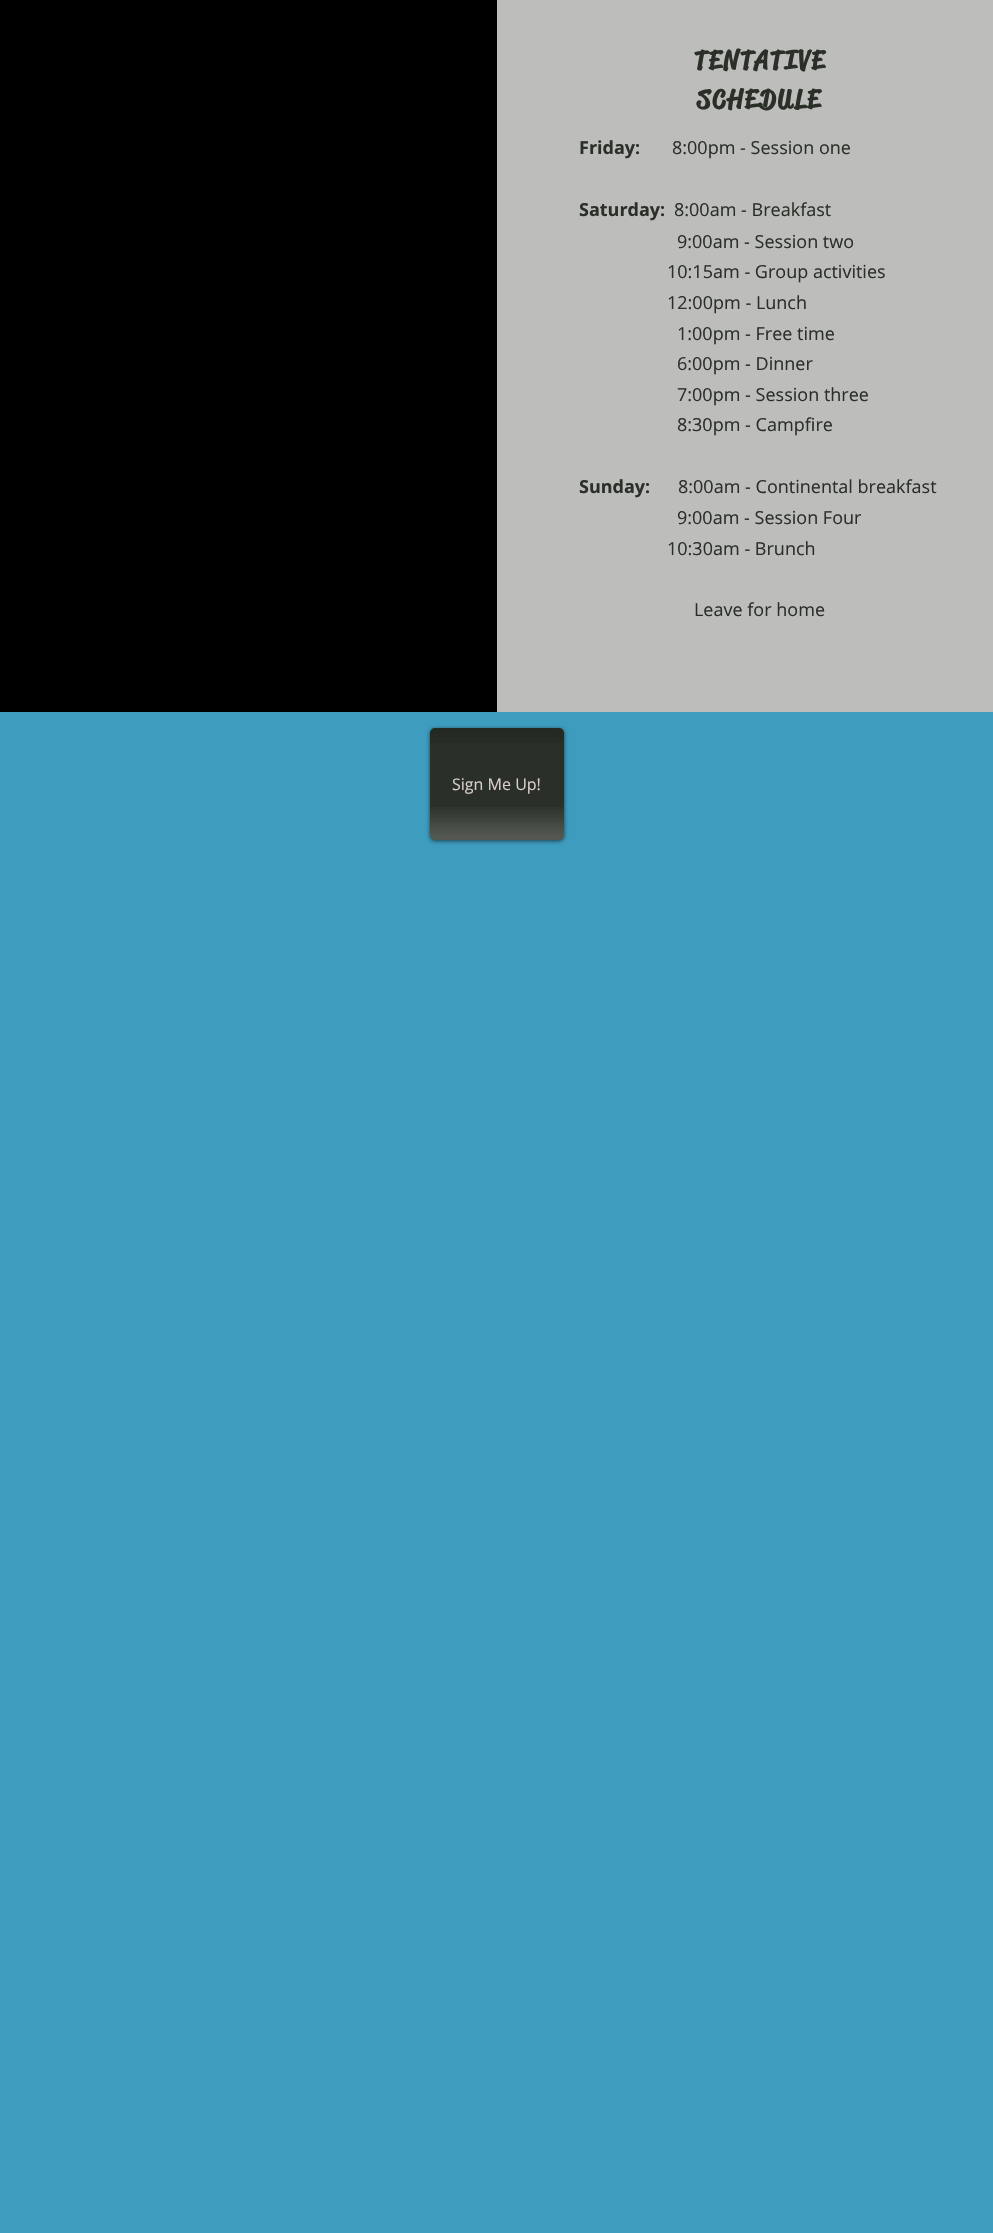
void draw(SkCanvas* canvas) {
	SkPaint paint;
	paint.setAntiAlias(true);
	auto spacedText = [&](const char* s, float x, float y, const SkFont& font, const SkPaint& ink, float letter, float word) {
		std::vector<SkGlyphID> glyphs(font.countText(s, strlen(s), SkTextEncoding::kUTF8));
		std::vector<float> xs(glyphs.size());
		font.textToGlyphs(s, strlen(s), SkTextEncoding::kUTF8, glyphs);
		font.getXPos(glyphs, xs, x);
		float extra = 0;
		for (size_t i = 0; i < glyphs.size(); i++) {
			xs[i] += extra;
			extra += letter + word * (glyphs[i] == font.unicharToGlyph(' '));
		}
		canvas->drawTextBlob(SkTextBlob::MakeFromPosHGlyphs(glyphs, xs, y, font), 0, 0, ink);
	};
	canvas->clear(0xff3e9cbf);
	paint.setColor(0xff000000);
	canvas->drawRect(SkRect::MakeXYWH(0, 0, 497, 712), paint);
	paint.setColor(0xffbdbdbc);
	canvas->drawRect(SkRect::MakeXYWH(497, 0, 496, 712), paint);
	SkFont f1(fontMgr->matchFamilyStyle("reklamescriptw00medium", SkFontStyle::Bold()), 26);
	f1.setSubpixel(true);
	paint.setColor(0xff2a3027);
	spacedText("TENTATIVE", 694, 69, f1, paint, 2.5, 0);
	spacedText("SCHEDULE", 697, 108, f1, paint, 2.5, 0);
	SkFont f2(fontMgr->matchFamilyStyle("Open Sans", SkFontStyle::Bold()), 18);
	f2.setSubpixel(true);
	canvas->drawString("Friday:", 579, 154, f2, paint);
	SkFont f3(fontMgr->matchFamilyStyle("Open Sans", SkFontStyle::Normal()), 18);
	f3.setSubpixel(true);
	canvas->drawString("8:00pm - Session one", 672, 154, f3, paint);
	canvas->drawString("Saturday:", 579, 216, f2, paint);
	canvas->drawString("8:00am - Breakfast", 674, 216, f3, paint);
	canvas->drawString("9:00am - Session two", 677, 248, f3, paint);
	canvas->drawString("10:15am - Group activities", 667, 278, f3, paint);
	canvas->drawString("12:00pm - Lunch", 667, 309, f3, paint);
	canvas->drawString("1:00pm - Free time", 677, 340, f3, paint);
	canvas->drawString("6:00pm - Dinner", 677, 370, f3, paint);
	canvas->drawString("7:00pm - Session three", 677, 401, f3, paint);
	canvas->drawString("8:30pm - Campfire", 677, 431, f3, paint);
	canvas->drawString("Sunday:", 579, 493, f2, paint);
	canvas->drawString("8:00am - Continental breakfast", 678, 493, f3, paint);
	canvas->drawString("9:00am - Session Four", 677, 524, f3, paint);
	canvas->drawString("10:30am - Brunch", 667, 555, f3, paint);
	canvas->drawString("Leave for home", 694, 616, f3, paint);
	paint.setColor(0x99000000);
	paint.setMaskFilter(SkMaskFilter::MakeBlur(kNormal_SkBlurStyle, 2));
	canvas->drawRoundRect(SkRect::MakeXYWH(430, 729, 134, 112), 5, 5, paint);
	paint.setMaskFilter(nullptr);
	paint.setColor(0xff2a3027);
	canvas->drawRoundRect(SkRect::MakeXYWH(430, 728, 134, 112), 5, 5, paint);
	canvas->drawImageRect(SkImages::DeferredFromEncodedData(SkData::MakeFromFileName("img1.png")), SkRect::MakeXYWH(430, 728, 134, 15), SkSamplingOptions());
	canvas->drawImageRect(SkImages::DeferredFromEncodedData(SkData::MakeFromFileName("img2.png")), SkRect::MakeXYWH(430, 807, 134, 33), SkSamplingOptions());
	SkFont f4(fontMgr->matchFamilyStyle("Open Sans", SkFontStyle::Normal()), 16);
	f4.setSubpixel(true);
	paint.setColor(0xffdbcecf);
	canvas->drawString("Sign Me Up!", 452, 790, f4, paint);
}
